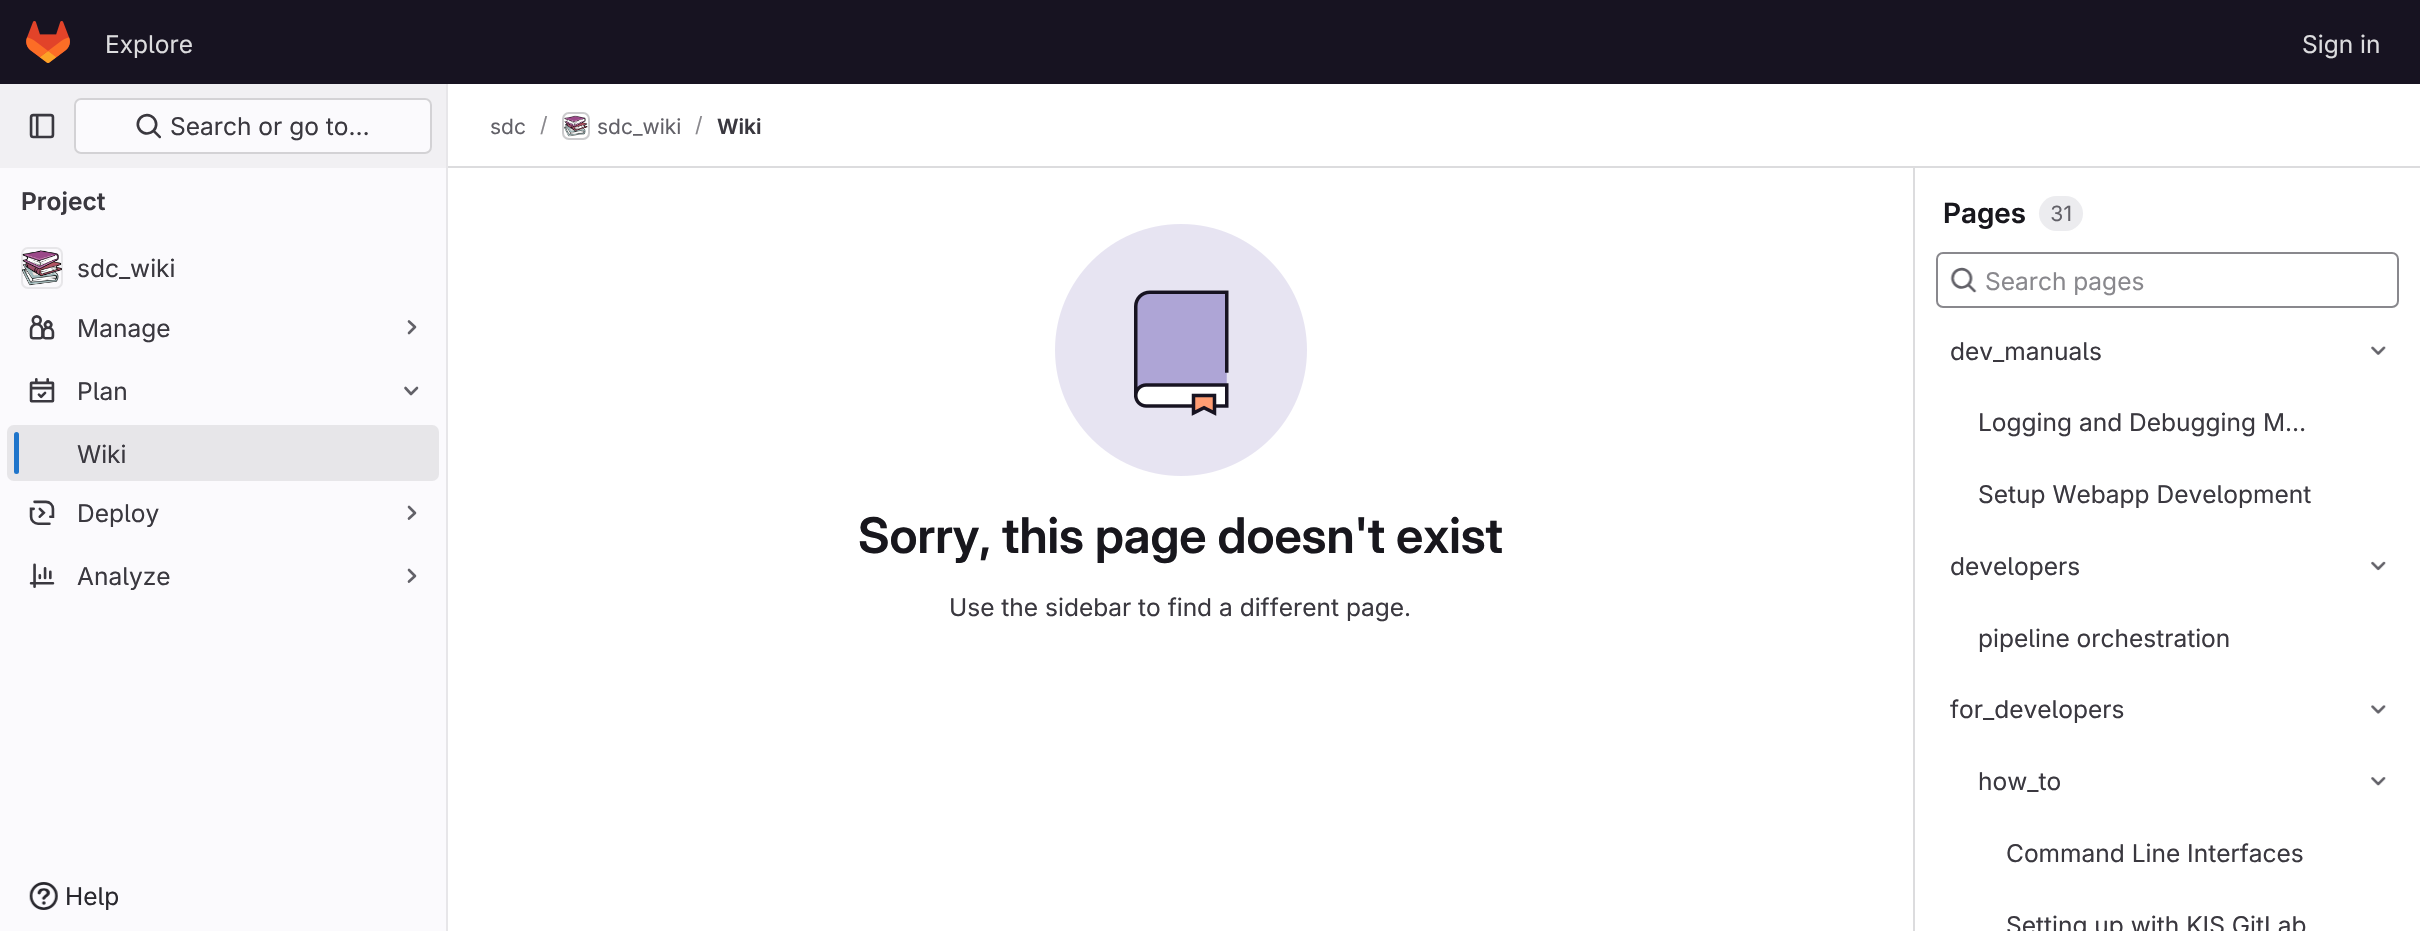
void draw(SkCanvas* canvas) {
	SkPaint paint;
	paint.setAntiAlias(true);
	auto svgPath = [&](const char* data, bool evenOdd = false) {
		SkPath result = *SkParsePath::FromSVGString(data);
		if (evenOdd) result.setFillType(SkPathFillType::kEvenOdd);
		return result;
	};
	canvas->clear(0xffffffff);
	paint.setColor(0xff171321);
	canvas->drawRect(SkRect::MakeXYWH(0, 0, 2420, 84), paint);
	canvas->drawImageRect(SkImages::DeferredFromEncodedData(SkData::MakeFromFileName("img1.png")), SkRect::MakeXYWH(26, 21, 44, 42), SkSamplingOptions());
	SkFont f1(fontMgr->matchFamilyStyle("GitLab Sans", SkFontStyle::Normal()), 24.5);
	f1.setSubpixel(true);
	paint.setColor(0xffdcdcde);
	canvas->drawString("Explore", 105, 53, f1, paint);
	canvas->drawString("Sign in", 2302, 53, f1, paint);
	paint.setColor(0xfffbfafd);
	canvas->drawRect(SkRect::MakeXYWH(0, 168, 446, 763), paint);
	paint.setColor(0xffe7e6e9);
	canvas->drawRect(SkRect::MakeXYWH(446, 84, 2, 847), paint);
	paint.setColor(0xfff1f0f3);
	canvas->drawRect(SkRect::MakeXYWH(0, 84, 446, 84), paint);
	canvas->drawImageRect(SkImages::DeferredFromEncodedData(SkData::MakeFromFileName("img2.png")), SkRect::MakeXYWH(29, 113, 26, 26), SkSamplingOptions());
	paint.setColor(0xfffbfafd);
	canvas->drawRoundRect(SkRect::MakeXYWH(74, 98, 358, 56), 7, 7, paint);
	paint.setStroke(true);
	paint.setStrokeWidth(2);
	paint.setColor(0x29050506);
	canvas->drawRoundRect(SkRect::MakeXYWH(75, 99, 356, 54), 6, 6, paint);
	canvas->drawImageRect(SkImages::DeferredFromEncodedData(SkData::MakeFromFileName("img3.png")), SkRect::MakeXYWH(136, 113, 25, 26), SkSamplingOptions());
	paint.setStroke(false);
	paint.setColor(0xff3a383f);
	canvas->drawString("Search or go to…", 170, 135, f1, paint);
	SkFont f2(fontMgr->matchFamilyStyle("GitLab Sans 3", SkFontStyle(600, SkFontStyle::kNormal_Width, SkFontStyle::kUpright_Slant)), 24.5);
	f2.setSubpixel(true);
	canvas->drawString("Project", 21, 210, f2, paint);
	canvas->drawImageRect(SkImages::DeferredFromEncodedData(SkData::MakeFromFileName("img4.png")), SkRect::MakeXYWH(22, 250, 40, 36), SkSamplingOptions());
	paint.setStroke(true);
	paint.setColor(0x14050506);
	canvas->drawRoundRect(SkRect::MakeXYWH(22, 248, 40, 40), 6, 6, paint);
	paint.setStroke(false);
	paint.setColor(0xff3a383f);
	canvas->drawString("sdc_wiki", 77, 277, f1, paint);
	canvas->drawImageRect(SkImages::DeferredFromEncodedData(SkData::MakeFromFileName("img5.png")), SkRect::MakeXYWH(29, 315, 26, 25), SkSamplingOptions());
	canvas->drawString("Manage", 77, 337, f1, paint);
	paint.setStroke(true);
	paint.setStrokeWidth(2.6);
	paint.setStrokeCap(SkPaint::kRound_Cap);
	paint.setStrokeJoin(SkPaint::kRound_Join);
	paint.setColor(0xff626168);
	canvas->drawPath(svgPath("M409 321.5L415 327L409 333"), paint);
	canvas->drawImageRect(SkImages::DeferredFromEncodedData(SkData::MakeFromFileName("img6.png")), SkRect::MakeXYWH(29, 378, 26, 25), SkSamplingOptions());
	paint.setStroke(false);
	paint.setColor(0xff3a383f);
	canvas->drawString("Plan", 77, 400, f1, paint);
	paint.setStroke(true);
	paint.setColor(0xff626168);
	canvas->drawPath(svgPath("M417 388L411 394L405.5 388"), paint);
	paint.setStroke(false);
	paint.setColor(0xffe7e6e9);
	canvas->drawRoundRect(SkRect::MakeXYWH(7, 425, 432, 56), 7, 7, paint);
	paint.setColor(0xff1f75cb);
	canvas->drawRoundRect(SkRect::MakeXYWH(14, 432, 5, 42), 2.5, 2.5, paint);
	paint.setColor(0xff3a383f);
	canvas->drawString("Wiki", 77, 463, f1, paint);
	canvas->drawImageRect(SkImages::DeferredFromEncodedData(SkData::MakeFromFileName("img7.png")), SkRect::MakeXYWH(29, 500, 26, 25), SkSamplingOptions());
	canvas->drawString("Deploy", 77, 522, f1, paint);
	paint.setStroke(true);
	paint.setColor(0xff626168);
	canvas->drawPath(svgPath("M409 507L415 513L409 518.5"), paint);
	canvas->drawImageRect(SkImages::DeferredFromEncodedData(SkData::MakeFromFileName("img8.png")), SkRect::MakeXYWH(29, 563, 26, 25), SkSamplingOptions());
	paint.setStroke(false);
	paint.setColor(0xff3a383f);
	canvas->drawString("Analyze", 77, 585, f1, paint);
	paint.setStroke(true);
	paint.setColor(0xff626168);
	canvas->drawPath(svgPath("M409 570L415 576L409 581.5"), paint);
	canvas->drawImageRect(SkImages::DeferredFromEncodedData(SkData::MakeFromFileName("img9.png")), SkRect::MakeXYWH(29, 882, 29, 28), SkSamplingOptions());
	paint.setStroke(false);
	paint.setColor(0xff28272d);
	canvas->drawString("Help", 65, 905, f1, paint);
	paint.setColor(0xffdcdcde);
	canvas->drawRect(SkRect::MakeXYWH(448, 166, 1972, 2), paint);
	SkFont f3(fontMgr->matchFamilyStyle("GitLab Sans", SkFontStyle::Normal()), 21);
	f3.setSubpixel(true);
	paint.setColor(0xff626168);
	canvas->drawString("sdc", 490, 134, f3, paint);
	paint.setColor(0xff89888d);
	canvas->drawString("/", 540, 132, f3, paint);
	paint.setStroke(true);
	paint.setStrokeWidth(2);
	paint.setStrokeCap(SkPaint::kButt_Cap);
	paint.setStrokeJoin(SkPaint::kMiter_Join);
	paint.setColor(0xffdcdcde);
	canvas->drawRoundRect(SkRect::MakeXYWH(563, 113, 26, 26), 6, 6, paint);
	canvas->drawImageRect(SkImages::DeferredFromEncodedData(SkData::MakeFromFileName("img10.png")), SkRect::MakeXYWH(564, 115, 24, 22), SkSamplingOptions());
	paint.setColor(0x14050506);
	canvas->drawRoundRect(SkRect::MakeXYWH(563, 113, 26, 26), 6, 6, paint);
	paint.setStroke(false);
	paint.setColor(0xff626168);
	canvas->drawString("sdc_wiki", 597, 134, f3, paint);
	paint.setColor(0xff89888d);
	canvas->drawString("/", 695, 132, f3, paint);
	SkFont f4(fontMgr->matchFamilyStyle("GitLab Sans 3", SkFontStyle(600, SkFontStyle::kNormal_Width, SkFontStyle::kUpright_Slant)), 21);
	f4.setSubpixel(true);
	paint.setColor(0xff3a383f);
	canvas->drawString("Wiki", 717, 134, f4, paint);
	canvas->drawImageRect(SkImages::DeferredFromEncodedData(SkData::MakeFromFileName("img11.png")), SkRect::MakeXYWH(1055, 224, 252, 252), SkSamplingOptions());
	SkFont f5(fontMgr->matchFamilyStyle("GitLab Sans", SkFontStyle(600, SkFontStyle::kNormal_Width, SkFontStyle::kUpright_Slant)), 49);
	f5.setSubpixel(true);
	paint.setColor(0xff18171d);
	canvas->drawString("Sorry, this page doesn't exist", 858, 553, f5, paint);
	paint.setColor(0xff3a383f);
	canvas->drawString("Use the sidebar to find a different page.", 949, 616, f1, paint);
	paint.setColor(0xffdcdcde);
	canvas->drawRect(SkRect::MakeXYWH(1913, 168, 2, 763), paint);
	SkFont f6(fontMgr->matchFamilyStyle("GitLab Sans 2", SkFontStyle(600, SkFontStyle::kNormal_Width, SkFontStyle::kUpright_Slant)), 28);
	f6.setSubpixel(true);
	paint.setColor(0xff18171d);
	canvas->drawString("Pages", 1943, 223, f6, paint);
	paint.setColor(0xffececef);
	canvas->drawRoundRect(SkRect::MakeXYWH(2039, 196, 44, 35), 17.5, 17.5, paint);
	paint.setColor(0xff626168);
	canvas->drawString("31", 2050, 221, f3, paint);
	paint.setStroke(true);
	paint.setColor(0xff89888d);
	canvas->drawRoundRect(SkRect::MakeXYWH(1937, 253, 461, 54), 6, 6, paint);
	canvas->drawImageRect(SkImages::DeferredFromEncodedData(SkData::MakeFromFileName("img12.png")), SkRect::MakeXYWH(1950, 267, 27, 26), SkSamplingOptions());
	paint.setStroke(false);
	canvas->drawString("Search pages", 1985, 290, f1, paint);
	paint.setColor(0xff3a383f);
	canvas->drawString("dev_manuals", 1950, 360, f1, paint);
	canvas->drawImageRect(SkImages::DeferredFromEncodedData(SkData::MakeFromFileName("img13.png")), SkRect::MakeXYWH(2371, 346, 15, 9), SkSamplingOptions());
	canvas->drawString("Logging and Debugging M…", 1978, 431, f1, paint);
	canvas->drawString("Setup Webapp Development", 1978, 503, f1, paint);
	canvas->drawString("developers", 1950, 575, f1, paint);
	canvas->drawImageRect(SkImages::DeferredFromEncodedData(SkData::MakeFromFileName("img14.png")), SkRect::MakeXYWH(2371, 561, 15, 10), SkSamplingOptions());
	canvas->drawString("pipeline orchestration", 1978, 647, f1, paint);
	canvas->save();
	canvas->clipRect(SkRect::MakeXYWH(1950, 691, 175, 37));
	canvas->drawString("for_developers", 1950, 718, f1, paint);
	canvas->restore();
	canvas->drawImageRect(SkImages::DeferredFromEncodedData(SkData::MakeFromFileName("img15.png")), SkRect::MakeXYWH(2371, 705, 15, 9), SkSamplingOptions());
	canvas->drawString("how_to", 1978, 790, f1, paint);
	canvas->drawImageRect(SkImages::DeferredFromEncodedData(SkData::MakeFromFileName("img16.png")), SkRect::MakeXYWH(2371, 777, 15, 9), SkSamplingOptions());
	canvas->drawString("Command Line Interfaces", 2006, 862, f1, paint);
	canvas->drawString("Setting up with KIS GitLab", 2006, 934, f1, paint);
}
